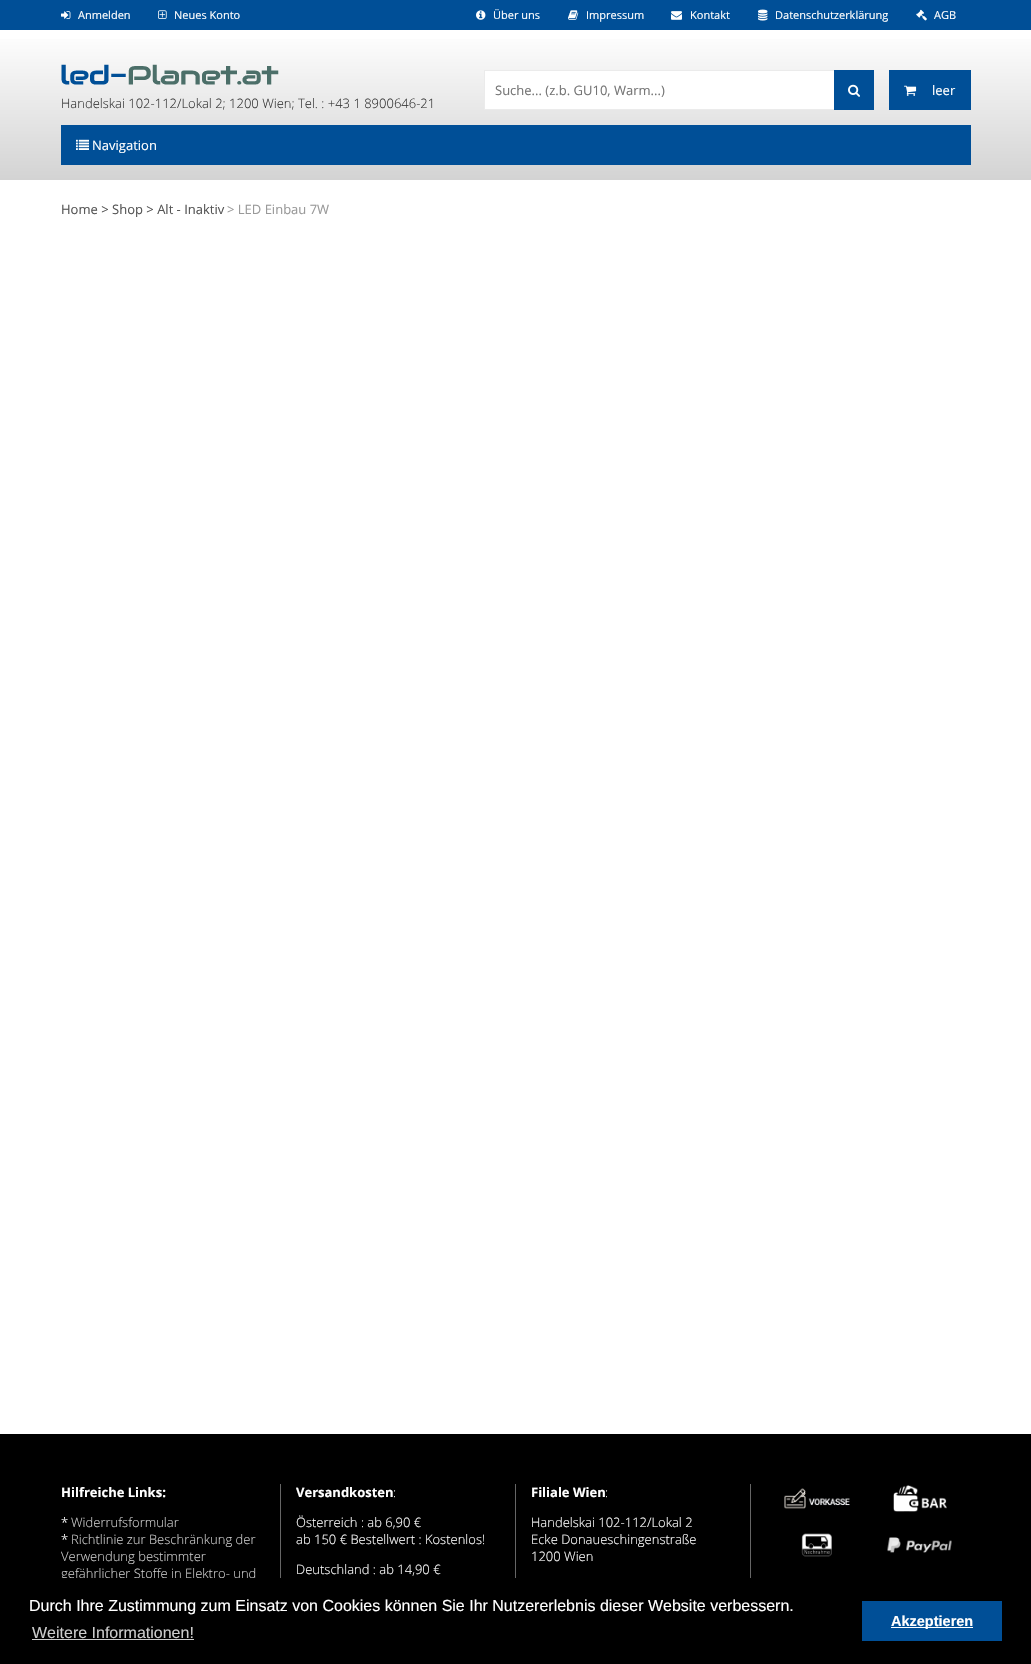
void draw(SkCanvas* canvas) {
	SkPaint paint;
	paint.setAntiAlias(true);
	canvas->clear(0xffffffff);
	paint.setColor(0xff004f97);
	canvas->drawRect(SkRect::MakeXYWH(0, 0, 1031, 30), paint);
	canvas->drawImageRect(SkImages::DeferredFromEncodedData(SkData::MakeFromFileName("img1.png")), SkRect::MakeXYWH(61, 11, 10, 8), SkSamplingOptions());
	SkFont f1(fontMgr->matchFamilyStyle("Open Sans", SkFontStyle::Normal()), 11);
	f1.setSubpixel(true);
	paint.setColor(0xffffffff);
	canvas->drawString("Anmelden", 78, 19, f1, paint);
	canvas->drawImageRect(SkImages::DeferredFromEncodedData(SkData::MakeFromFileName("img2.png")), SkRect::MakeXYWH(158, 10, 9, 9), SkSamplingOptions());
	canvas->drawString("Neues Konto", 174, 19, f1, paint);
	canvas->drawImageRect(SkImages::DeferredFromEncodedData(SkData::MakeFromFileName("img3.png")), SkRect::MakeXYWH(476, 10, 10, 10), SkSamplingOptions());
	canvas->drawString("Über uns", 493, 19, f1, paint);
	canvas->drawImageRect(SkImages::DeferredFromEncodedData(SkData::MakeFromFileName("img4.png")), SkRect::MakeXYWH(568, 10, 11, 10), SkSamplingOptions());
	canvas->drawString("Impressum", 586, 19, f1, paint);
	canvas->drawImageRect(SkImages::DeferredFromEncodedData(SkData::MakeFromFileName("img5.png")), SkRect::MakeXYWH(671, 11, 11, 9), SkSamplingOptions());
	canvas->drawString("Kontakt", 690, 19, f1, paint);
	canvas->drawImageRect(SkImages::DeferredFromEncodedData(SkData::MakeFromFileName("img6.png")), SkRect::MakeXYWH(758, 9, 10, 12), SkSamplingOptions());
	canvas->drawString("Datenschutzerklärung", 775, 19, f1, paint);
	canvas->drawImageRect(SkImages::DeferredFromEncodedData(SkData::MakeFromFileName("img7.png")), SkRect::MakeXYWH(916, 9, 11, 12), SkSamplingOptions());
	canvas->drawString("AGB", 934, 19, f1, paint);
	{
		const SkColor colors[] = {0xffffffff, 0xffd3d3d3};
		const float stops[] = {0, 1};
		const SkPoint ends[] = {{516, 30}, {516, 180}};
		paint.setShader(SkGradientShader::MakeLinear(ends, colors, stops, 2, SkTileMode::kClamp));
		paint.setAlpha(255);
	}
	canvas->drawRect(SkRect::MakeXYWH(0, 39, 1031, 141), paint);
	paint.setShader(nullptr);
	paint.setColor(0xffffffff);
	canvas->drawRect(SkRect::MakeXYWH(485, 71, 349, 38), paint);
	paint.setStroke(true);
	paint.setStrokeWidth(1);
	paint.setColor(0xffebebeb);
	canvas->drawRect(SkRect::MakeXYWH(484.5, 70.5, 389, 39), paint);
	SkFont f2(fontMgr->matchFamilyStyle("Open Sans", SkFontStyle::Normal()), 13);
	f2.setSubpixel(true);
	paint.setStroke(false);
	paint.setColor(0xff757575);
	canvas->drawString("Suche... (z.b. GU10, Warm...)", 495, 95, f2, paint);
	paint.setColor(0xff004f97);
	canvas->drawRect(SkRect::MakeXYWH(834, 70, 40, 40), paint);
	canvas->drawImageRect(SkImages::DeferredFromEncodedData(SkData::MakeFromFileName("img8.png")), SkRect::MakeXYWH(848, 84, 12, 13), SkSamplingOptions());
	canvas->drawRect(SkRect::MakeXYWH(889, 70, 82, 40), paint);
	canvas->drawImageRect(SkImages::DeferredFromEncodedData(SkData::MakeFromFileName("img9.png")), SkRect::MakeXYWH(904, 85, 13, 11), SkSamplingOptions());
	paint.setColor(0xffffffff);
	canvas->drawString("leer", 932, 95, f2, paint);
	canvas->drawImageRect(SkImages::DeferredFromEncodedData(SkData::MakeFromFileName("img10.png")), SkRect::MakeXYWH(61, 64, 218, 21), SkSamplingOptions());
	SkFont f3(fontMgr->matchFamilyStyle("Open Sans", SkFontStyle(300, SkFontStyle::kNormal_Width, SkFontStyle::kUpright_Slant)), 13);
	f3.setSubpixel(true);
	paint.setColor(0xff333333);
	canvas->drawString("Handelskai 102-112/Lokal 2; 1200 Wien; Tel. : +43 1 8900646-21", 61, 108, f3, paint);
	paint.setColor(0xff004f97);
	canvas->drawRect(SkRect::MakeXYWH(61, 125, 910, 40), paint);
	canvas->drawImageRect(SkImages::DeferredFromEncodedData(SkData::MakeFromFileName("img11.png")), SkRect::MakeXYWH(76, 139, 13, 11), SkSamplingOptions());
	paint.setColor(0xffffffff);
	canvas->drawString("Navigation", 92, 150, f2, paint);
	paint.setColor(0xff555555);
	canvas->drawString("Home > Shop > Alt - Inaktiv", 61, 214, f2, paint);
	paint.setColor(0xff999999);
	canvas->drawString("> LED Einbau 7W", 227, 214, f2, paint);
	paint.setColor(0xff000000);
	canvas->drawRect(SkRect::MakeXYWH(0, 1434, 1031, 144), paint);
	paint.setColor(0xff666666);
	canvas->drawRect(SkRect::MakeXYWH(280, 1484, 1, 94), paint);
	SkFont f4(fontMgr->matchFamilyStyle("Open Sans", SkFontStyle::Bold()), 13);
	f4.setSubpixel(true);
	paint.setColor(0xffffffff);
	canvas->drawString("Hilfreiche Links:", 61, 1497, f4, paint);
	canvas->drawString("*", 61, 1527, f3, paint);
	paint.setColor(0xffcccccc);
	canvas->drawString("Widerrufsformular", 71, 1527, f3, paint);
	paint.setColor(0xffffffff);
	canvas->drawString("*", 61, 1544, f3, paint);
	paint.setColor(0xffcccccc);
	canvas->drawString("Richtlinie zur Beschränkung der", 71, 1544, f3, paint);
	canvas->drawString("Verwendung bestimmter", 61, 1561, f3, paint);
	canvas->drawString("gefährlicher Stoffe in Elektro- und", 61, 1578, f3, paint);
	paint.setColor(0xff666666);
	canvas->drawRect(SkRect::MakeXYWH(515, 1484, 1, 94), paint);
	paint.setColor(0xffffffff);
	canvas->drawString("Versandkosten", 296, 1497, f4, paint);
	canvas->drawString(":", 393, 1497, f3, paint);
	canvas->drawString("Österreich : ab 6,90 €", 296, 1527, f3, paint);
	canvas->drawString("ab 150 € Bestellwert : Kostenlos!", 296, 1544, f3, paint);
	canvas->drawString("Deutschland : ab 14,90 €", 296, 1574, f3, paint);
	paint.setColor(0xff666666);
	canvas->drawRect(SkRect::MakeXYWH(750, 1484, 1, 94), paint);
	paint.setColor(0xffffffff);
	canvas->drawString("Filiale Wien", 531, 1497, f4, paint);
	canvas->drawString(":", 605, 1497, f3, paint);
	canvas->drawString("Handelskai 102-112/Lokal 2", 531, 1527, f3, paint);
	canvas->drawString("Ecke Donaueschingenstraße", 531, 1544, f3, paint);
	canvas->drawString("1200 Wien", 531, 1561, f3, paint);
	canvas->drawImageRect(SkImages::DeferredFromEncodedData(SkData::MakeFromFileName("img12.png")), SkRect::MakeXYWH(784, 1488, 66, 21), SkSamplingOptions());
	canvas->drawImageRect(SkImages::DeferredFromEncodedData(SkData::MakeFromFileName("img13.png")), SkRect::MakeXYWH(893, 1485, 54, 27), SkSamplingOptions());
	canvas->drawImageRect(SkImages::DeferredFromEncodedData(SkData::MakeFromFileName("img14.png")), SkRect::MakeXYWH(801, 1533, 31, 24), SkSamplingOptions());
	canvas->drawImageRect(SkImages::DeferredFromEncodedData(SkData::MakeFromFileName("img15.png")), SkRect::MakeXYWH(887, 1537, 65, 16), SkSamplingOptions());
	paint.setColor(0xff000000);
	canvas->drawRect(SkRect::MakeXYWH(0, 1578, 1031, 86), paint);
	SkFont f5(fontMgr->matchFamilyStyle("Liberation Sans", SkFontStyle::Normal()), 16);
	f5.setSubpixel(true);
	paint.setColor(0xffffffff);
	canvas->drawString("Durch Ihre Zustimmung zum Einsatz von Cookies können Sie Ihr Nutzererlebnis dieser Website verbessern.", 29, 1611, f5, paint);
	paint.setColor(0xffcccccc);
	canvas->drawString("Weitere Informationen!", 32, 1638, f5, paint);
	canvas->drawRect(SkRect::MakeXYWH(32, 1639, 162, 1), paint);
	paint.setColor(0xff004f97);
	canvas->drawRect(SkRect::MakeXYWH(862, 1601, 140, 40), paint);
	paint.setColor(0xffffffff);
	canvas->drawRect(SkRect::MakeXYWH(891, 1627, 82, 1), paint);
	SkFont f6(fontMgr->matchFamilyStyle("Liberation Sans", SkFontStyle::Bold()), 14.5);
	f6.setSubpixel(true);
	canvas->drawString("Akzeptieren", 891, 1626, f6, paint);
}
